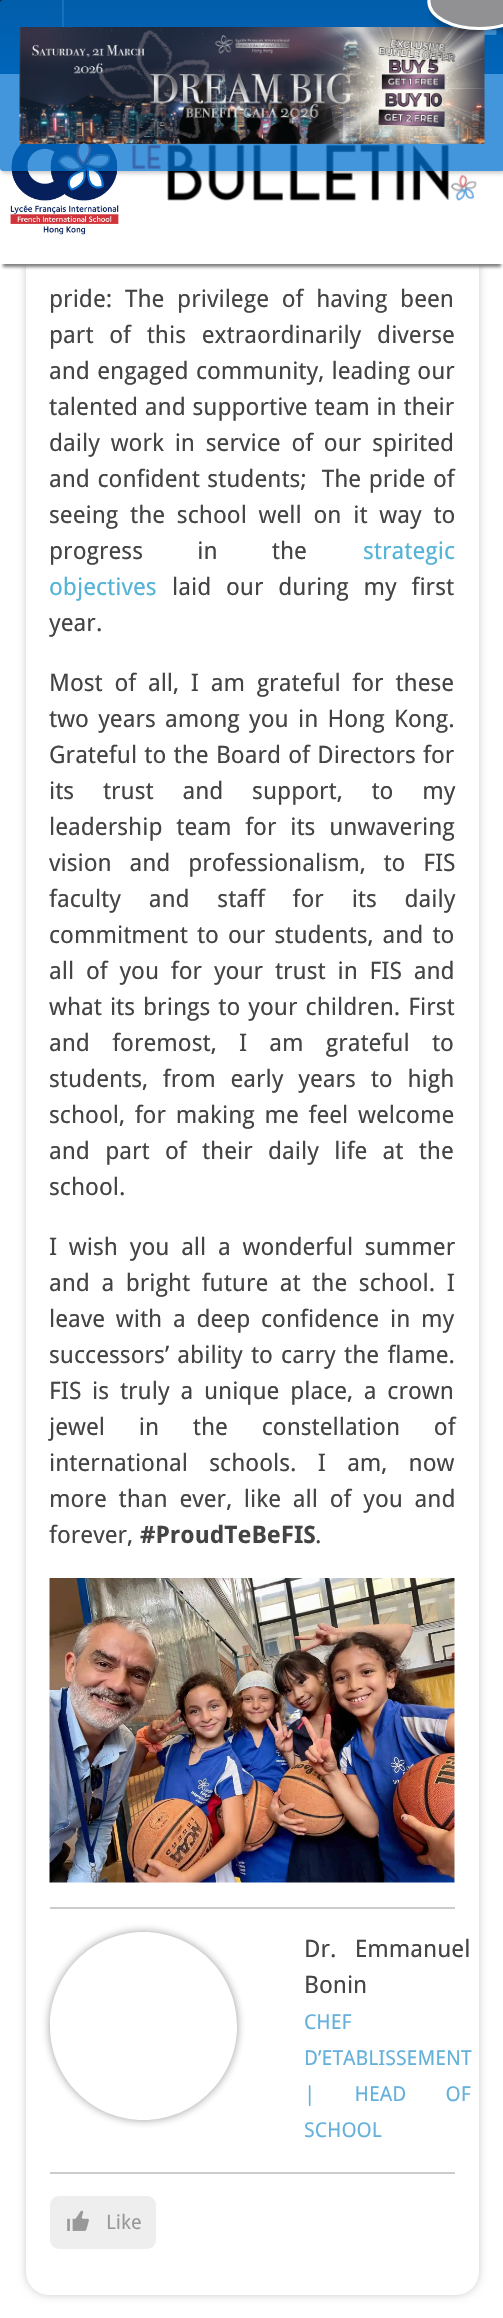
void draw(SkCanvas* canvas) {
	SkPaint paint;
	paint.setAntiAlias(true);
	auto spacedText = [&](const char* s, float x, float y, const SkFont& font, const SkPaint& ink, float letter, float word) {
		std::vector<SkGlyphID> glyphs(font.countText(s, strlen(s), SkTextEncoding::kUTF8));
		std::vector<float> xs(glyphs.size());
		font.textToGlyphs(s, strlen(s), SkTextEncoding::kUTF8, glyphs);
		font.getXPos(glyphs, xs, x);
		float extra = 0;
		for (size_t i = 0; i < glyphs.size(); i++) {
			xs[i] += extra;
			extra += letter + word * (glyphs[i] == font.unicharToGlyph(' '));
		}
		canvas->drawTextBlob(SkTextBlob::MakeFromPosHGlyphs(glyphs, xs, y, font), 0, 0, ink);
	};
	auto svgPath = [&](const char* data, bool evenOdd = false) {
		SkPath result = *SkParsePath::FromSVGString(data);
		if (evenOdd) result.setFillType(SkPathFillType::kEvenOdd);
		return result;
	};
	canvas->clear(0xffffffff);
	paint.setColor(0xffcccccc);
	paint.setMaskFilter(SkMaskFilter::MakeBlur(kNormal_SkBlurStyle, 4));
	canvas->drawRoundRect(SkRect::MakeXYWH(26, -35, 453, 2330), 23, 23, paint);
	paint.setMaskFilter(nullptr);
	paint.setColor(0xffffffff);
	canvas->drawRoundRect(SkRect::MakeXYWH(26, -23, 453, 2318), 23, 23, paint);
	{
		const SkColor colors[] = {0xff002342, 0xff00427d};
		const float stops[] = {0, 1};
		const SkPoint ends[] = {{252, 0}, {252, 74}};
		paint.setShader(SkGradientShader::MakeLinear(ends, colors, stops, 2, SkTileMode::kClamp));
		paint.setAlpha(255);
	}
	canvas->drawRect(SkRect::MakeXYWH(0, 0, 503, 74), paint);
	paint.setShader(nullptr);
	paint.setColor(0x4fffffff);
	canvas->drawRect(SkRect::MakeXYWH(62, 0, 2, 27), paint);
	canvas->drawImageRect(SkImages::DeferredFromEncodedData(SkData::MakeFromFileName("img1.png")), SkRect::MakeXYWH(484, 29, 13, 6), SkSamplingOptions());
	paint.setColor(0xff808080);
	paint.setMaskFilter(SkMaskFilter::MakeBlur(kNormal_SkBlurStyle, 1.5));
	canvas->drawRect(SkRect::MakeXYWH(3, 83, 498, 184), paint);
	paint.setMaskFilter(nullptr);
	paint.setColor(0xffffffff);
	canvas->drawRect(SkRect::MakeXYWH(0, 74, 503, 190), paint);
	canvas->drawImageRect(SkImages::DeferredFromEncodedData(SkData::MakeFromFileName("img2.png")), SkRect::MakeXYWH(10, 143, 109, 92), SkSamplingOptions());
	canvas->drawImageRect(SkImages::DeferredFromEncodedData(SkData::MakeFromFileName("img3.png")), SkRect::MakeXYWH(131, 144, 346, 57), SkSamplingOptions());
	canvas->save();
	canvas->clipPath(svgPath("M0 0H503V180H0ZM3 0H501C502.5 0 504 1.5 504 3V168C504 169.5 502.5 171 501 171H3C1.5 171 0 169.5 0 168V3C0 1.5 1.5 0 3 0Z", true), true);
	paint.setColor(0x3b020202);
	paint.setMaskFilter(SkMaskFilter::MakeBlur(kNormal_SkBlurStyle, 2));
	canvas->drawRoundRect(SkRect::MakeXYWH(2, 2, 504, 171), 3, 3, paint);
	paint.setMaskFilter(nullptr);
	canvas->restore();
	paint.setColor(0xbd0171ce);
	canvas->drawRoundRect(SkRect::MakeXYWH(0, 0, 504, 171), 3, 3, paint);
	canvas->drawImageRect(SkImages::DeferredFromEncodedData(SkData::MakeFromFileName("img4.png")), SkRect::MakeXYWH(19, 27, 466, 117), SkSamplingOptions());
	paint.setColor(0x3b020202);
	paint.setMaskFilter(SkMaskFilter::MakeBlur(kNormal_SkBlurStyle, 2));
	canvas->drawRoundRect(SkRect::MakeXYWH(429, -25, 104, 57), 28.5, 28.5, paint);
	paint.setMaskFilter(nullptr);
	paint.setColor(0xff919194);
	canvas->drawOval(SkRect::MakeXYWH(427, -27, 104, 57), paint);
	paint.setStroke(true);
	paint.setStrokeWidth(3);
	paint.setColor(0xffffffff);
	canvas->drawPath(svgPath("M479-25.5C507-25.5 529.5-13.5 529.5 1.5C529.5 16.5 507 28.5 479 28.5C451.5 28.5 429 16.5 429 1.5C429-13.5 451.5-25.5 479-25.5Z"), paint);
	SkFont f1(fontMgr->matchFamilyStyle("Droid Sans", SkFontStyle::Normal()), 24);
	f1.setSubpixel(true);
	paint.setStroke(false);
	paint.setColor(0xff444444);
	spacedText("pride: The privilege of having been", 49, 307, f1, paint, 0, 6.5);
	spacedText("part of this extraordinarily diverse", 49, 343, f1, paint, 0, 9.5);
	spacedText("and engaged community, leading our", 49, 379, f1, paint, 0, 1);
	spacedText("talented and supportive team in their", 49, 415, f1, paint, 0, 0.5);
	spacedText("daily work in service of our spirited", 49, 451, f1, paint, 0, 4.5);
	spacedText("and confident students;  The pride of", 49, 487, f1, paint, 0, 1.25);
	spacedText("seeing the school well on it way to", 49, 523, f1, paint, 0, 5.5);
	spacedText("progress in the", 49, 559, f1, paint, 0, 48);
	paint.setColor(0xff54b3d6);
	canvas->drawString("strategic", 363, 559, f1, paint);
	canvas->drawString("objectives", 49, 595, f1, paint);
	paint.setColor(0xff444444);
	spacedText("laid our during my first", 172, 595, f1, paint, 0, 8.5);
	canvas->drawString("year.", 49, 631, f1, paint);
	spacedText("Most of all, I am grateful for these", 49, 691, f1, paint, 0, 5.5);
	spacedText("two years among you in Hong Kong.", 49, 727, f1, paint, 0, 3);
	spacedText("Grateful to the Board of Directors for", 49, 763, f1, paint, 0, 1);
	spacedText("its trust and support, to my", 49, 799, f1, paint, 0, 22.5);
	spacedText("leadership team for its unwavering", 49, 835, f1, paint, 0, 7.5);
	spacedText("vision and professionalism, to FIS", 49, 871, f1, paint, 0, 11.5);
	spacedText("faculty and staff for its daily", 49, 907, f1, paint, 0, 21.5);
	spacedText("commitment to our students, and to", 49, 943, f1, paint, 0, 2.75);
	spacedText("all of you for your trust in FIS and", 49, 979, f1, paint, 0, 5.5);
	spacedText("what its brings to your children. First", 49, 1015, f1, paint, 0, 1.75);
	spacedText("and foremost, I am grateful to", 49, 1051, f1, paint, 0, 16);
	spacedText("students, from early years to high", 49, 1087, f1, paint, 0, 8.5);
	spacedText("school, for making me feel welcome", 49, 1123, f1, paint, 0, 3.5);
	spacedText("and part of their daily life at the", 49, 1159, f1, paint, 0, 9);
	canvas->drawString("school.", 49, 1195, f1, paint);
	spacedText("I wish you all a wonderful summer", 49, 1255, f1, paint, 0, 5.5);
	spacedText("and a bright future at the school. I", 49, 1291, f1, paint, 0, 5.25);
	spacedText("leave with a deep confidence in my", 49, 1327, f1, paint, 0, 4.5);
	spacedText("successors’ ability to carry the flame.", 49, 1363, f1, paint, 0, 2);
	spacedText("FIS is truly a unique place, a crown", 49, 1399, f1, paint, 0, 4.5);
	spacedText("jewel in the constellation of", 49, 1435, f1, paint, 0, 27.5);
	spacedText("international schools. I am, now", 49, 1471, f1, paint, 0, 15);
	spacedText("more than ever, like all of you and", 49, 1507, f1, paint, 0, 5.5);
	canvas->drawString("forever,", 49, 1543, f1, paint);
	SkFont f2(fontMgr->matchFamilyStyle("Droid Sans", SkFontStyle::Bold()), 24);
	f2.setSubpixel(true);
	canvas->drawString("#ProudTeBeFIS", 140, 1543, f2, paint);
	canvas->drawString(".", 315, 1543, f1, paint);
	canvas->drawImageRect(SkImages::DeferredFromEncodedData(SkData::MakeFromFileName("img5.png")), SkRect::MakeXYWH(49, 1578, 406, 305), SkSamplingOptions());
	paint.setColor(0xffcccccc);
	canvas->drawRect(SkRect::MakeXYWH(50, 1907, 405, 2), paint);
	canvas->drawRect(SkRect::MakeXYWH(50, 2172, 405, 2), paint);
	canvas->save();
	canvas->clipPath(svgPath("M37 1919H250V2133H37ZM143.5 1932C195 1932 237 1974 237 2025.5V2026.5C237 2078 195 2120 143.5 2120C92 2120 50 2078 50 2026.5V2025.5C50 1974 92 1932 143.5 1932Z", true), true);
	paint.setColor(0x75222222);
	paint.setMaskFilter(SkMaskFilter::MakeBlur(kNormal_SkBlurStyle, 4));
	canvas->drawRoundRect(SkRect::MakeXYWH(50, 1932, 187, 188), 93.5, 93.5, paint);
	paint.setMaskFilter(nullptr);
	canvas->restore();
	paint.setColor(0xff444444);
	spacedText("Dr. Emmanuel", 304, 1957, f1, paint, 0, 12);
	canvas->drawString("Bonin", 304, 1993, f1, paint);
	SkFont f3(fontMgr->matchFamilyStyle("Droid Sans", SkFontStyle::Normal()), 20.5);
	f3.setSubpixel(true);
	paint.setColor(0xff66b1db);
	canvas->drawString("CHEF", 304, 2029, f3, paint);
	canvas->drawString("D’ETABLISSEMENT", 304, 2065, f3, paint);
	spacedText("| HEAD OF", 304, 2101, f3, paint, 0, 34);
	canvas->drawString("SCHOOL", 304, 2137, f3, paint);
	paint.setColor(0xffeeeeee);
	canvas->drawRoundRect(SkRect::MakeXYWH(50, 2196, 106, 53), 9, 9, paint);
	canvas->drawImageRect(SkImages::DeferredFromEncodedData(SkData::MakeFromFileName("img6.png")), SkRect::MakeXYWH(67, 2210, 22, 21), SkSamplingOptions());
	SkFont f4(fontMgr->matchFamilyStyle("Droid Sans", SkFontStyle::Normal()), 20);
	f4.setSubpixel(true);
	paint.setColor(0xff999999);
	canvas->drawString("Like", 106, 2229, f4, paint);
}
